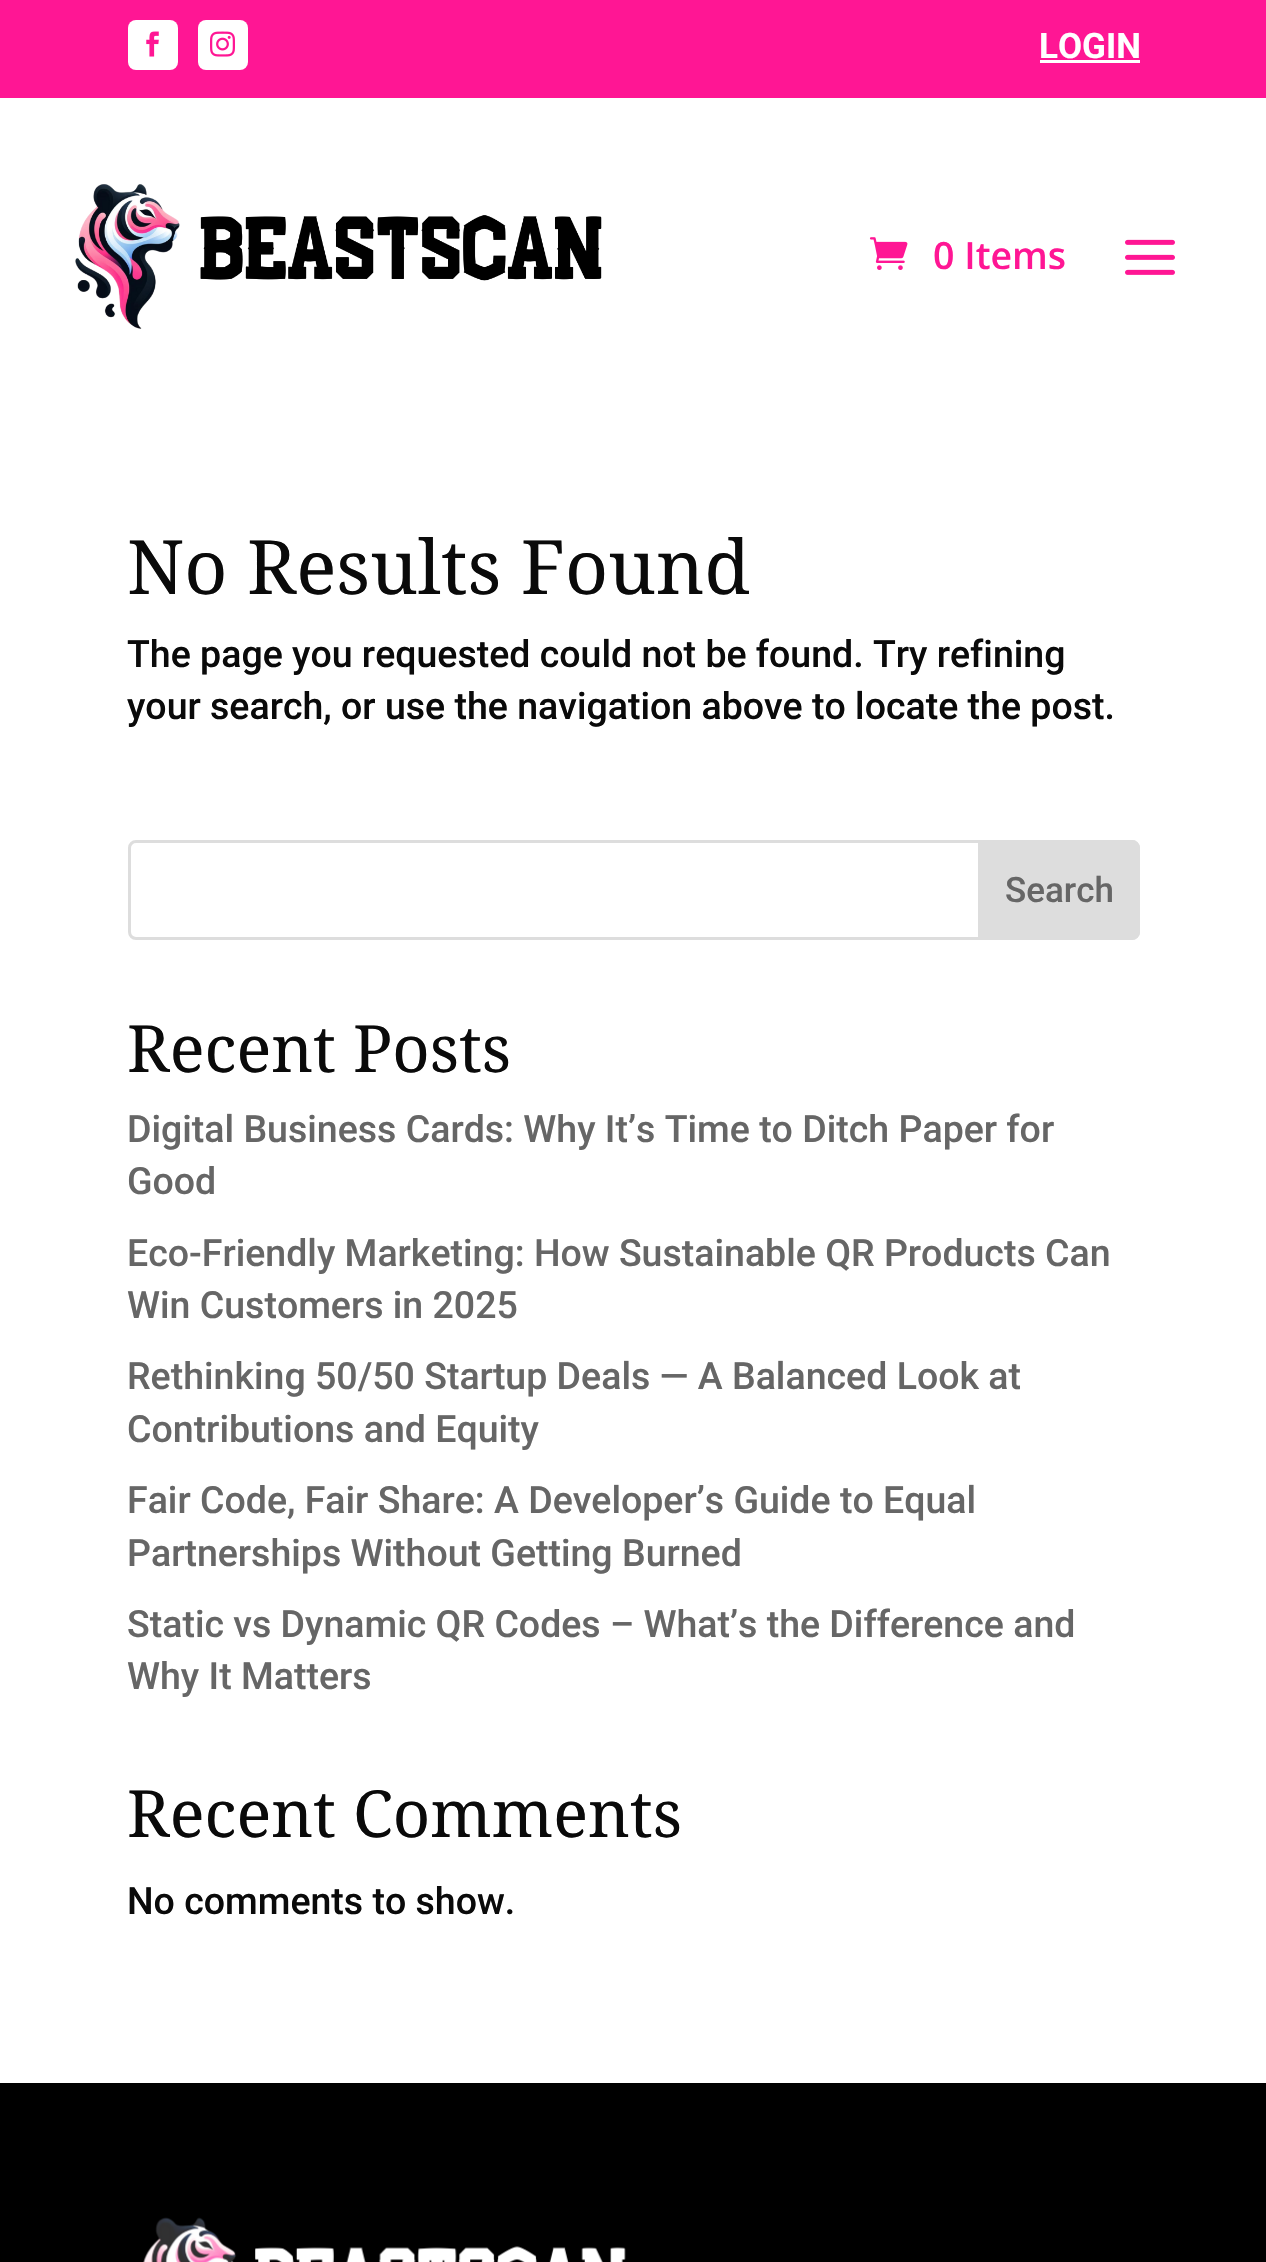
void draw(SkCanvas* canvas) {
	SkPaint fill;
	fill.setAntiAlias(true);
	auto makeFont = [&](const char* family, int weight, float size, bool italic = false) {
		SkFontStyle style(weight, SkFontStyle::kNormal_Width,
			italic ? SkFontStyle::kItalic_Slant : SkFontStyle::kUpright_Slant);
		SkFont result(fontMgr->matchFamilyStyle(family, style), size);
		result.setSubpixel(true);
		return result;
	};
	auto text = [&](const char* s, float x, float y, const SkFont& font) {
		canvas->drawString(s, x, y, font, fill);
	};
	auto box = [&](float l, float t, float r, float b) {
		canvas->drawRect(SkRect::MakeLTRB(l, t, r, b), fill);
	};
	auto roundBox = [&](float l, float t, float r, float b, float radius) {
		canvas->drawRoundRect(SkRect::MakeLTRB(l, t, r, b), radius, radius, fill);
	};
	auto picture = [&](const char* path, float l, float t, float r, float b) {
		auto image = SkImages::DeferredFromEncodedData(SkData::MakeFromFileName(path));
		canvas->drawImageRect(image, SkRect::MakeLTRB(l, t, r, b), SkSamplingOptions());
	};
	canvas->clear(0xFFFFFFFF);
	fill.setColor(0xFFFF1694);
	box(0, 0, 1266, 98);
	fill.setColor(0xFFFFFFFF);
	roundBox(128, 20, 178, 70, 8);
	picture("image0.png", 146, 31, 159, 57);
	roundBox(198, 20, 248, 70, 8);
	picture("image1.png", 210, 31, 235, 57);
	box(1040, 60, 1140, 63);
	picture("image2.png", 75, 184, 602, 329);
	picture("image3.png", 869, 237, 908, 270);
	picture("image4.png", 1125, 239, 1175, 275);
	fill.setStyle(SkPaint::kStroke_Style);
	fill.setStrokeWidth(3);
	fill.setColor(0xFFDDDDDD);
	canvas->drawRoundRect(SkRect::MakeLTRB(129.5f, 841.5f, 1138.5f, 938.5f), 6.5f, 6.5f, fill);
	fill.setStyle(SkPaint::kFill_Style);
	canvas->drawPath(SkPathBuilder().moveTo(979.5f, 841.5f).lineTo(1132, 841.5f).cubicTo(1135.5f, 841.5f, 1138.5f, 844.5f, 1138.5f, 848).lineTo(1138.5f, 932).cubicTo(1138.5f, 935.5f, 1135.5f, 938.5f, 1132, 938.5f).lineTo(979.5f, 938.5f).close().detach(), fill);
	fill.setStyle(SkPaint::kStroke_Style);
	canvas->drawPath(SkPathBuilder().moveTo(979.5f, 841.5f).lineTo(1132, 841.5f).cubicTo(1135.5f, 841.5f, 1138.5f, 844.5f, 1138.5f, 848).lineTo(1138.5f, 932).cubicTo(1138.5f, 935.5f, 1135.5f, 938.5f, 1132, 938.5f).lineTo(979.5f, 938.5f).close().detach(), fill);
	fill.setStyle(SkPaint::kFill_Style);
	fill.setColor(0xFF000000);
	box(0, 2083, 1266, 2262);
	picture("image5.png", 143, 2217, 626, 2262);
	auto font1 = makeFont("Roboto", 700, 35);
	fill.setColor(0xFFFFFFFF);
	text("LOGIN", 1039, 58, font1);
	auto font2 = makeFont("Open Sans", 600, 37.5f);
	fill.setColor(0xFFFF1694);
	text("0 Items", 933, 269, font2);
	auto font3 = makeFont("Noto Serif", 400, 75);
	fill.setColor(0xFF0A0A0A);
	text("No Results Found", 127, 594, font3);
	auto font4 = makeFont("Roboto", 500, 37.5f);
	text("The page you requested could not be found. Try refining", 127, 667, font4);
	text("your search, or use the navigation above to locate the post.", 127, 719, font4);
	auto font5 = makeFont("Roboto", 500, 35);
	fill.setColor(0xFF666666);
	text("Search", 1005, 902, font5);
	auto font6 = makeFont("Noto Serif", 400, 65);
	fill.setColor(0xFF0A0A0A);
	text("Recent Posts", 127, 1072, font6);
	fill.setColor(0xFF666666);
	text("Digital Business Cards: Why It’s Time to Ditch Paper for", 127, 1142, font4);
	text("Good", 127, 1194, font4);
	text("Eco-Friendly Marketing: How Sustainable QR Products Can", 127, 1266, font4);
	text("Win Customers in 2025", 127, 1318, font4);
	text("Rethinking 50/50 Startup Deals — A Balanced Look at", 127, 1389, font4);
	text("Contributions and Equity", 127, 1442, font4);
	text("Fair Code, Fair Share: A Developer’s Guide to Equal", 127, 1513, font4);
	text("Partnerships Without Getting Burned", 127, 1566, font4);
	text("Static vs Dynamic QR Codes – What’s the Difference and", 127, 1637, font4);
	text("Why It Matters", 127, 1689, font4);
	fill.setColor(0xFF0A0A0A);
	text("Recent Comments", 127, 1837, font6);
	text("No comments to show.", 127, 1914, font4);
}
